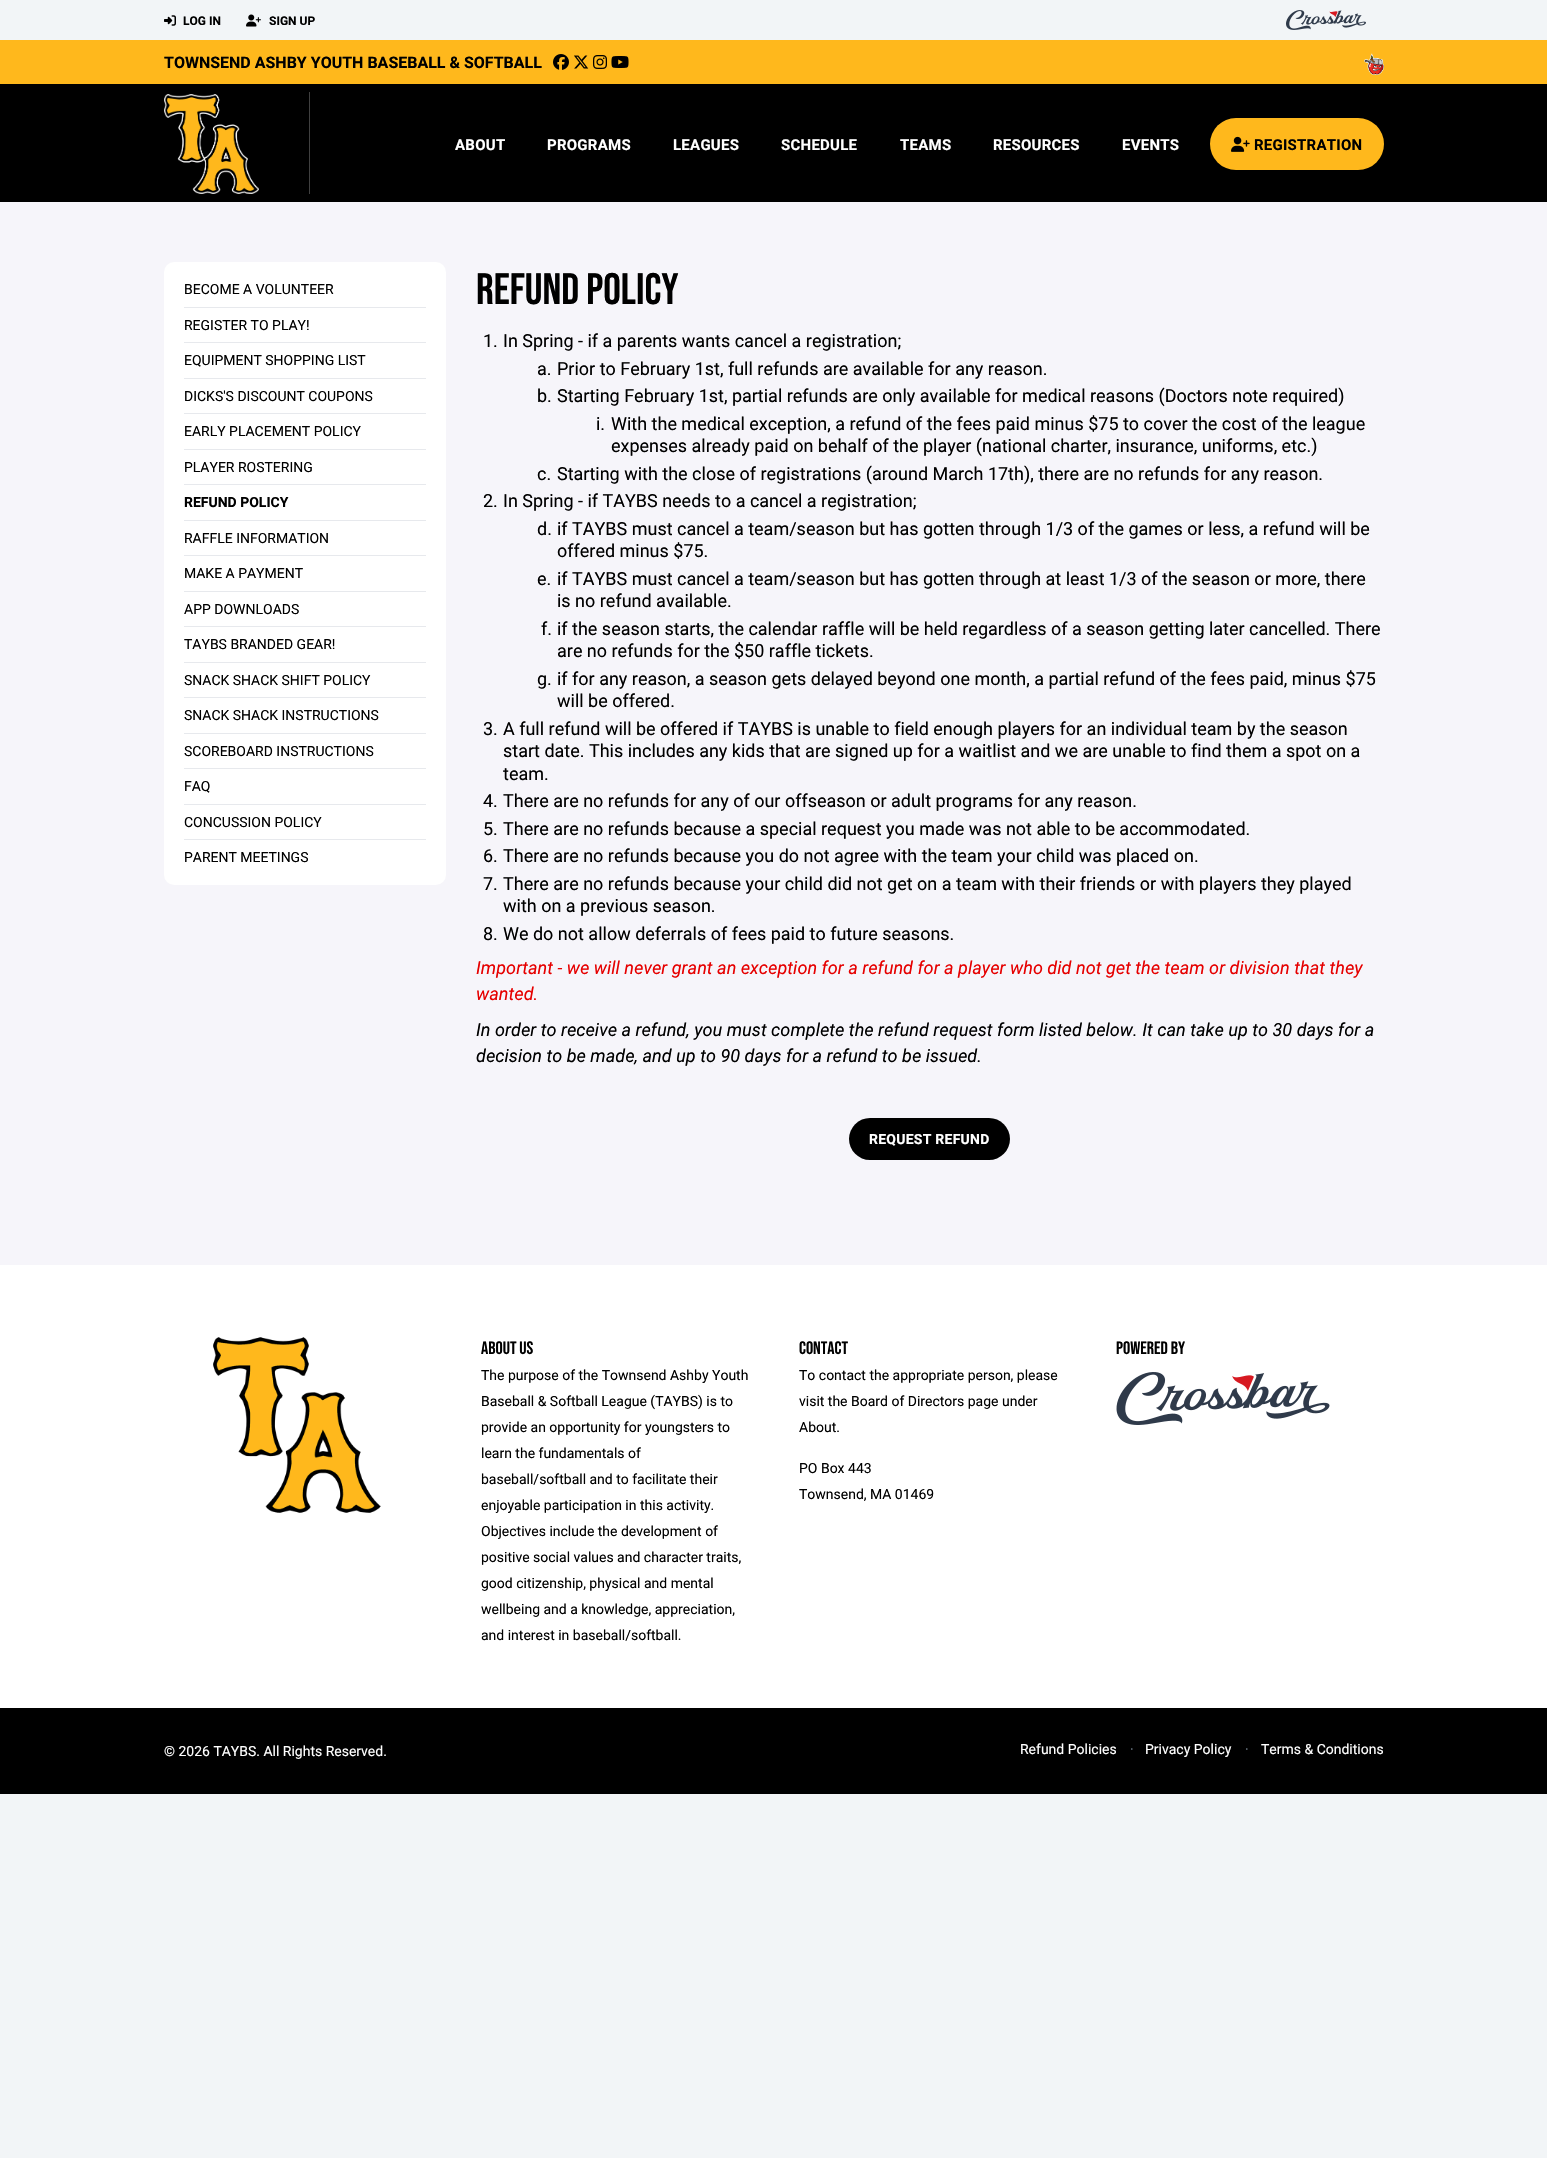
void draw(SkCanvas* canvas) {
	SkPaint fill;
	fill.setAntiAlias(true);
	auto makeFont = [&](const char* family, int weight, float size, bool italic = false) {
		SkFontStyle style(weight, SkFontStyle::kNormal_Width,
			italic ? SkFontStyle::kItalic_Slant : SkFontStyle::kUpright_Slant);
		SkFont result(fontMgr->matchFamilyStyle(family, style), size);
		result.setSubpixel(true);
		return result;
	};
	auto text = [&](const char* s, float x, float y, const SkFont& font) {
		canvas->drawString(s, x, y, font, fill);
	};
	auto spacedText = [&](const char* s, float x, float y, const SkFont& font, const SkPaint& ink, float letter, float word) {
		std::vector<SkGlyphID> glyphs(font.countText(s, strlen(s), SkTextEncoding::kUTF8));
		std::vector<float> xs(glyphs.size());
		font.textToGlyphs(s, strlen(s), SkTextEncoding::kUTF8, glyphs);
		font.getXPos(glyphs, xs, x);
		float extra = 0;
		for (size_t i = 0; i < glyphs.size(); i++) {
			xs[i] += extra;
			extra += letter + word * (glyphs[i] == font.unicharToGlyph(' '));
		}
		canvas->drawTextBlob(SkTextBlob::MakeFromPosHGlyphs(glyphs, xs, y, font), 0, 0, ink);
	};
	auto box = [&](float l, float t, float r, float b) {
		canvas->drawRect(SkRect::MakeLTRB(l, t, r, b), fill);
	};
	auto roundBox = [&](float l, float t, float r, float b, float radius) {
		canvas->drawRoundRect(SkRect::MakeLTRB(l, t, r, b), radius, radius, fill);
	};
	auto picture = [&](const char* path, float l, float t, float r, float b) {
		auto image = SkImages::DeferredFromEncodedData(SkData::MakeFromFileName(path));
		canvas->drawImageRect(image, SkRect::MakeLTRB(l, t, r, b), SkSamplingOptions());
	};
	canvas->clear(0xFFF2F5F7);
	picture("image0.png", 164, 15, 176, 26);
	picture("image1.png", 246, 14, 261, 27);
	picture("image2.png", 1286, 10, 1366, 30);
	fill.setColor(0xFFFFB81C);
	box(0, 40, 1547, 84);
	picture("image3.png", 553, 54, 569, 70);
	picture("image4.png", 574, 55, 589, 69);
	picture("image5.png", 593, 55, 607, 69);
	picture("image6.png", 611, 56, 629, 68);
	picture("image7.png", 1364, 53, 1384, 75);
	fill.setColor(0xFF000000);
	box(0, 84, 1547, 202);
	fill.setColor(0xFF404040);
	box(309, 92, 310, 194);
	picture("image8.png", 164, 94, 259, 194);
	fill.setColor(0xFFFFB81C);
	roundBox(1210, 118, 1384, 170, 26);
	picture("image9.png", 1231, 136, 1250, 152);
	fill.setColor(0xFFF6F5FA);
	box(0, 202, 1547, 1265);
	fill.setColor(0xFFFFFFFF);
	roundBox(164, 262, 446, 885, 10);
	fill.setColor(0xFFE7E9ED);
	box(184, 307, 426, 308);
	box(184, 342, 426, 343);
	box(184, 378, 426, 379);
	box(184, 413, 426, 414);
	box(184, 449, 426, 450);
	box(184, 484, 426, 485);
	box(184, 520, 426, 521);
	box(184, 555, 426, 556);
	box(184, 591, 426, 592);
	box(184, 626, 426, 627);
	box(184, 662, 426, 663);
	box(184, 697, 426, 698);
	box(184, 733, 426, 734);
	box(184, 768, 426, 769);
	box(184, 804, 426, 805);
	box(184, 839, 426, 840);
	fill.setColor(0xFF000000);
	roundBox(849, 1118, 1010, 1160, 21);
	fill.setColor(0xFFFFFFFF);
	box(0, 1265, 1547, 1708);
	picture("image10.png", 213, 1337, 381, 1513);
	picture("image11.png", 1116, 1372, 1330, 1425);
	fill.setColor(0xFF000000);
	box(0, 1708, 1547, 1794);
	auto font1 = makeFont("Roboto", 700, 12);
	text("LOG IN", 183, 25, font1);
	text("SIGN UP", 269, 25, font1);
	auto font2 = makeFont("Roboto", 700, 16);
	text("TOWNSEND ASHBY YOUTH BASEBALL & SOFTBALL", 164, 68, font2);
	auto font3 = makeFont("Roboto", 700, 15);
	fill.setColor(0xFFFFFFFF);
	spacedText("ABOUT", 455, 150, font3, fill, 0.25f, 0);
	spacedText("PROGRAMS", 547, 150, font3, fill, 0.25f, 0);
	spacedText("LEAGUES", 673, 150, font3, fill, 0.25f, 0);
	spacedText("SCHEDULE", 781, 150, font3, fill, 0.25f, 0);
	spacedText("TEAMS", 900, 150, font3, fill, 0.25f, 0);
	spacedText("RESOURCES", 993, 150, font3, fill, 0.25f, 0);
	spacedText("EVENTS", 1122, 150, font3, fill, 0.25f, 0);
	fill.setColor(0xFF000000);
	spacedText("REGISTRATION", 1254, 150, font3, fill, 0.25f, 0);
	auto font4 = makeFont("Roboto", 400, 14);
	text("BECOME A VOLUNTEER", 184, 294, font4);
	text("REGISTER TO PLAY!", 184, 330, font4);
	text("EQUIPMENT SHOPPING LIST", 184, 365, font4);
	text("DICKS'S DISCOUNT COUPONS", 184, 401, font4);
	text("EARLY PLACEMENT POLICY", 184, 436, font4);
	text("PLAYER ROSTERING", 184, 472, font4);
	auto font5 = makeFont("Roboto", 700, 14);
	text("REFUND POLICY", 184, 507, font5);
	text("RAFFLE INFORMATION", 184, 543, font4);
	text("MAKE A PAYMENT", 184, 578, font4);
	text("APP DOWNLOADS", 184, 614, font4);
	text("TAYBS BRANDED GEAR!", 184, 649, font4);
	text("SNACK SHACK SHIFT POLICY", 184, 685, font4);
	text("SNACK SHACK INSTRUCTIONS", 184, 720, font4);
	text("SCOREBOARD INSTRUCTIONS", 184, 756, font4);
	text("FAQ", 184, 791, font4);
	text("CONCUSSION POLICY", 184, 827, font4);
	text("PARENT MEETINGS", 184, 862, font4);
	auto font6 = makeFont("Bebas Neue", 400, 44);
	text("REFUND POLICY", 476, 304, font6);
	auto font7 = makeFont("Roboto", 400, 18);
	text("1.", 483, 347, font7);
	text("In Spring - if a parents wants cancel a registration;", 503, 347, font7);
	text("a.", 537, 375, font7);
	text("Prior to February 1st, full refunds are available for any reason.", 557, 375, font7);
	text("b.", 537, 402, font7);
	text("Starting February 1st, partial refunds are only available for medical reasons (Doctors note required)", 557, 402, font7);
	text("i.", 596, 430, font7);
	text("With the medical exception, a refund of the fees paid minus $75 to cover the cost of the league", 611, 430, font7);
	text("expenses already paid on behalf of the player (national charter, insurance, uniforms, etc.)", 611, 452, font7);
	text("c.", 537, 480, font7);
	text("Starting with the close of registrations (around March 17th), there are no refunds for any reason.", 557, 480, font7);
	text("2.", 483, 507, font7);
	text("In Spring - if TAYBS needs to a cancel a registration;", 503, 507, font7);
	text("d.", 537, 535, font7);
	text("if TAYBS must cancel a team/season but has gotten through 1/3 of the games or less, a refund will be", 557, 535, font7);
	text("offered minus $75.", 557, 557, font7);
	text("e.", 537, 585, font7);
	text("if TAYBS must cancel a team/season but has gotten through at least 1/3 of the season or more, there", 557, 585, font7);
	text("is no refund available.", 557, 607, font7);
	text("f.", 541, 635, font7);
	text("if the season starts, the calendar raffle will be held regardless of a season getting later cancelled. There", 557, 635, font7);
	text("are no refunds for the $50 raffle tickets.", 557, 657, font7);
	text("g.", 537, 685, font7);
	text("if for any reason, a season gets delayed beyond one month, a partial refund of the fees paid, minus $75", 557, 685, font7);
	text("will be offered.", 557, 707, font7);
	text("3.", 483, 735, font7);
	text("A full refund will be offered if TAYBS is unable to field enough players for an individual team by the season", 503, 735, font7);
	text("start date. This includes any kids that are signed up for a waitlist and we are unable to find them a spot on a", 503, 757, font7);
	text("team.", 503, 780, font7);
	text("4.", 483, 807, font7);
	text("There are no refunds for any of our offseason or adult programs for any reason.", 503, 807, font7);
	text("5.", 483, 835, font7);
	text("There are no refunds because a special request you made was not able to be accommodated.", 503, 835, font7);
	text("6.", 483, 862, font7);
	text("There are no refunds because you do not agree with the team your child was placed on.", 503, 862, font7);
	text("7.", 483, 890, font7);
	text("There are no refunds because your child did not get on a team with their friends or with players they played", 503, 890, font7);
	text("with on a previous season.", 503, 912, font7);
	text("8.", 483, 940, font7);
	text("We do not allow deferrals of fees paid to future seasons.", 503, 940, font7);
	auto font8 = makeFont("Roboto", 400, 18, true);
	fill.setColor(0xFFE60000);
	text("Important - we will never grant an exception for a refund for a player who did not get the team or division that they", 476, 974, font8);
	text("wanted.", 476, 1000, font8);
	fill.setColor(0xFF000000);
	text("In order to receive a refund, you must complete the refund request form listed below. It can take up to 30 days for a", 476, 1036, font8);
	text("decision to be made, and up to 90 days for a refund to be issued.", 476, 1062, font8);
	fill.setColor(0xFFFFFFFF);
	spacedText("REQUEST REFUND", 869, 1144, font5, fill, 0.25f, 0);
	auto font9 = makeFont("Bebas Neue", 400, 18);
	fill.setColor(0xFF000000);
	text("ABOUT US", 481, 1354, font9);
	text("The purpose of the Townsend Ashby Youth", 481, 1380, font4);
	text("Baseball & Softball League (TAYBS) is to", 481, 1406, font4);
	text("provide an opportunity for youngsters to", 481, 1432, font4);
	text("learn the fundamentals of", 481, 1458, font4);
	text("baseball/softball and to facilitate their", 481, 1484, font4);
	text("enjoyable participation in this activity.", 481, 1510, font4);
	text("Objectives include the development of", 481, 1536, font4);
	text("positive social values and character traits,", 481, 1562, font4);
	text("good citizenship, physical and mental", 481, 1588, font4);
	text("wellbeing and a knowledge, appreciation,", 481, 1614, font4);
	text("and interest in baseball/softball.", 481, 1640, font4);
	text("CONTACT", 799, 1354, font9);
	text("To contact the appropriate person, please", 799, 1380, font4);
	text("visit the Board of Directors page under", 799, 1406, font4);
	text("About.", 799, 1432, font4);
	text("PO Box 443", 799, 1473, font4);
	text("Townsend, MA 01469", 799, 1499, font4);
	text("POWERED BY", 1116, 1354, font9);
	fill.setColor(0xFFFFFFFF);
	text("© 2026 TAYBS. All Rights Reserved.", 164, 1756, font4);
	text("Refund Policies", 1020, 1754, font4);
	fill.setColor(0xFF707E8C);
	text("·", 1130, 1754, font4);
	fill.setColor(0xFFFFFFFF);
	text("Privacy Policy", 1145, 1754, font4);
	fill.setColor(0xFF707E8C);
	text("·", 1245, 1754, font4);
	fill.setColor(0xFFFFFFFF);
	text("Terms & Conditions", 1261, 1754, font4);
}
